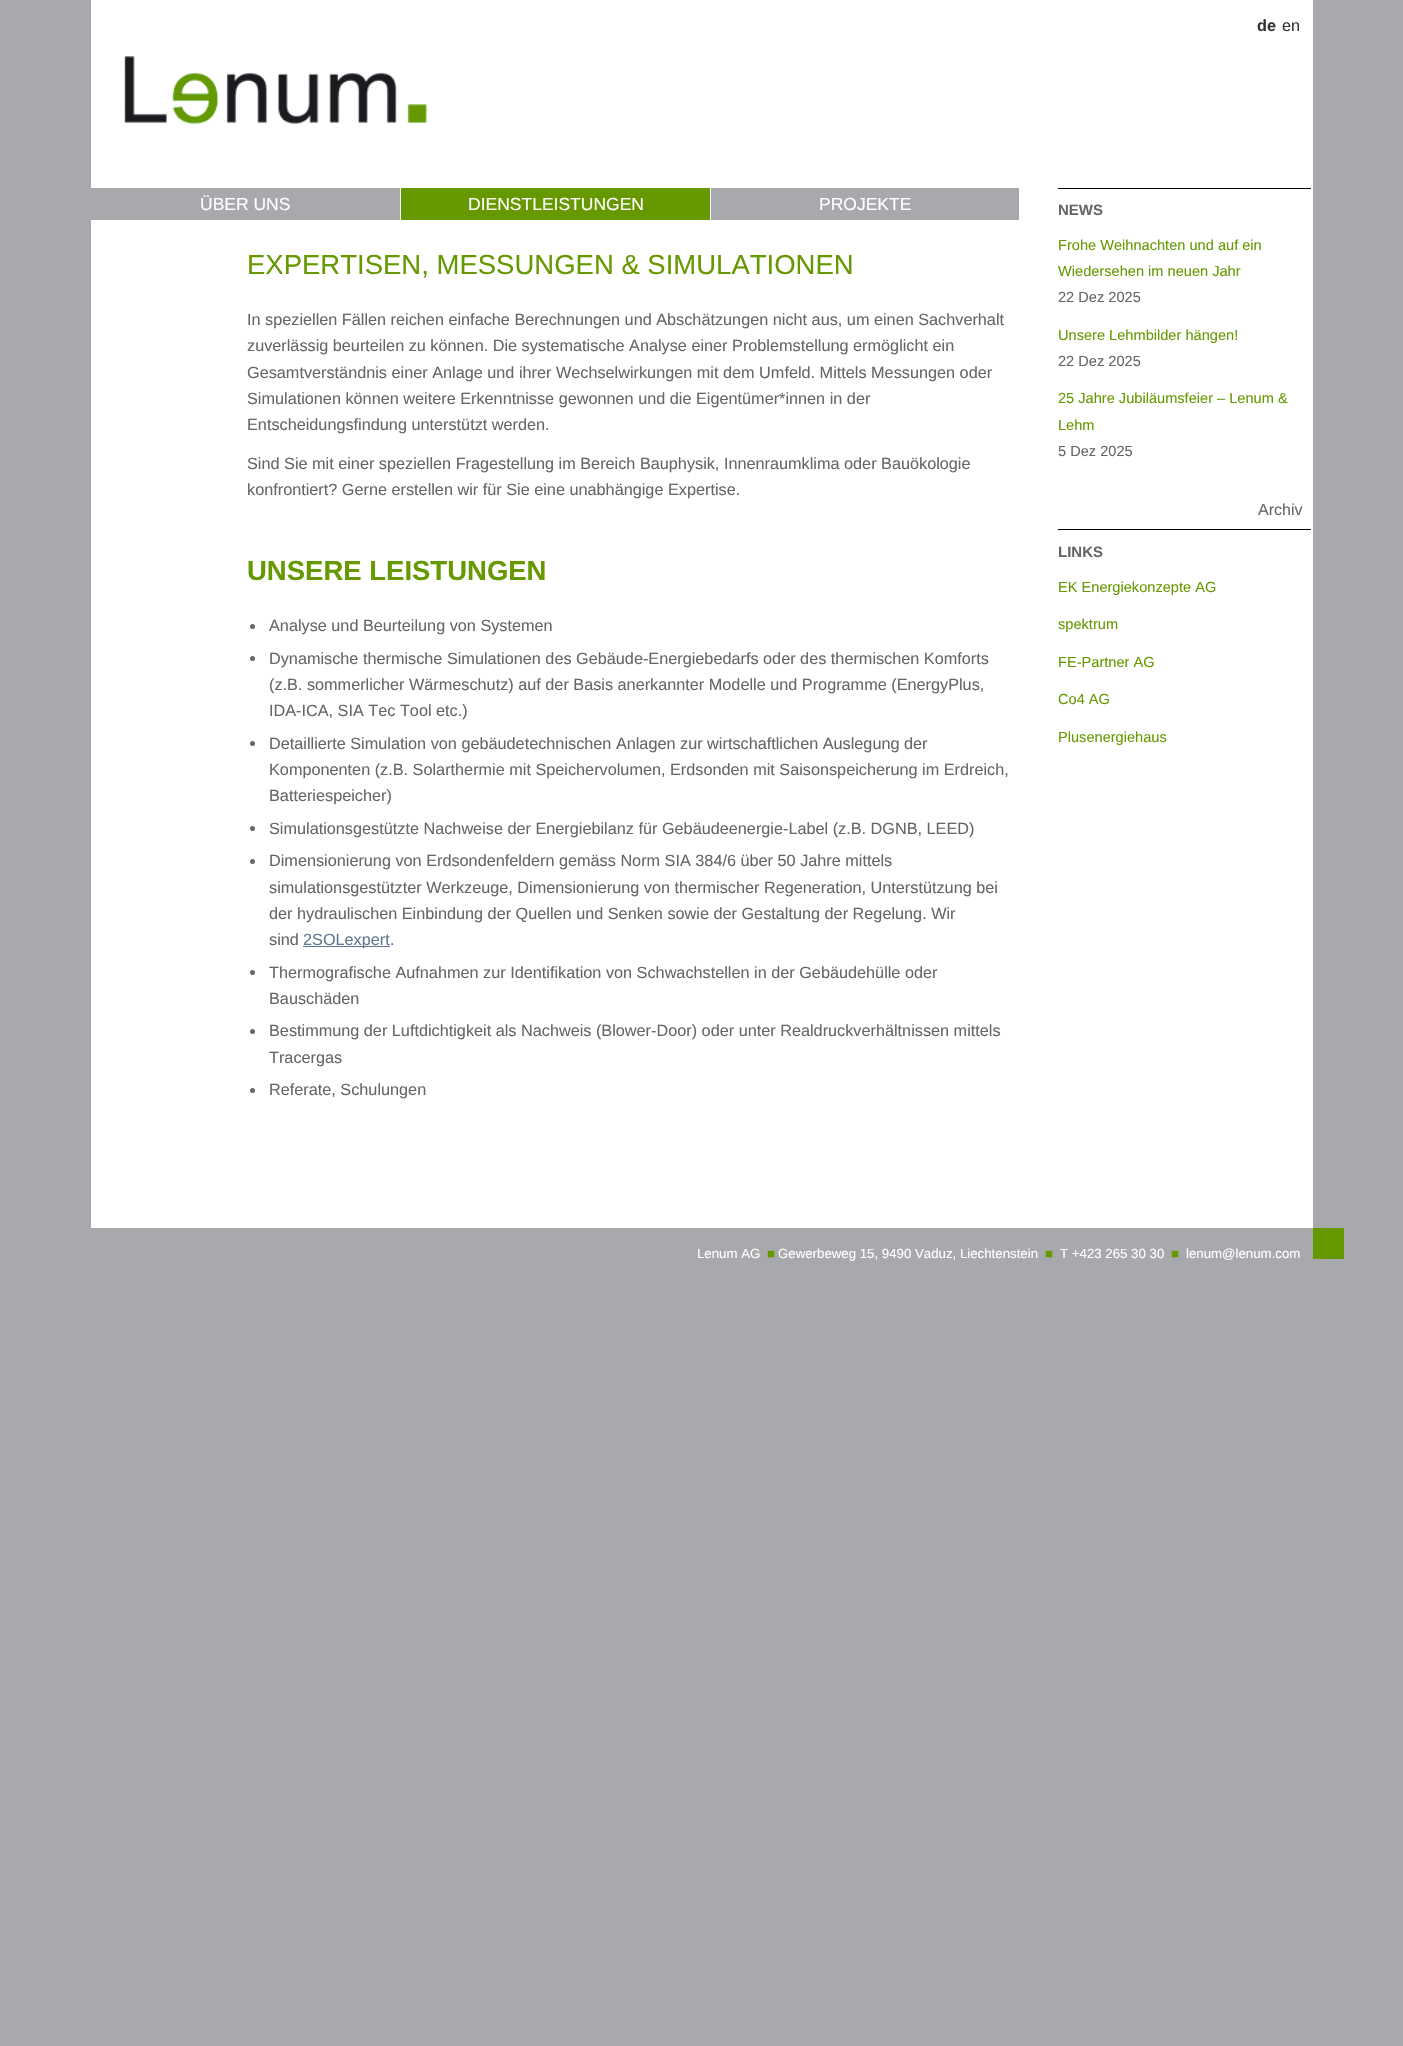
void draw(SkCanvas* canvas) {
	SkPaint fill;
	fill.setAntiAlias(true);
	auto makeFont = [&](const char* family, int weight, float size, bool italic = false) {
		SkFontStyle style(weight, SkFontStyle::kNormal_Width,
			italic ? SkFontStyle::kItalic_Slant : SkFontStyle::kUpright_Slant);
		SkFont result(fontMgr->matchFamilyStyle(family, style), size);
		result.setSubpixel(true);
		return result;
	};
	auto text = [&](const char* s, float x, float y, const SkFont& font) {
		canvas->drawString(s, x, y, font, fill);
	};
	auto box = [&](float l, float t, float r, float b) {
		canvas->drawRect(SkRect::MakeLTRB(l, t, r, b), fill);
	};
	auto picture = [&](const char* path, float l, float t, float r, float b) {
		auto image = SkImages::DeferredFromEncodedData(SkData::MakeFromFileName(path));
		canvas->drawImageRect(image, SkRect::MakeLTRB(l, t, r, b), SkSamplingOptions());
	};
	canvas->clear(0xFFA7A9AC);
	fill.setColor(0xFFFFFFFF);
	box(91, 0, 1313, 1228);
	picture("image0.png", 124, 56, 427, 124);
	fill.setColor(0xFFA7A9AC);
	box(91, 188, 400, 220);
	fill.setColor(0xFF669900);
	box(401, 188, 710, 220);
	fill.setColor(0xFFA7A9AC);
	box(711, 188, 1019, 220);
	fill.setColor(0xFF666666);
	canvas->drawCircle(252.5f, 626.5f, 2.5f, fill);
	canvas->drawCircle(252.5f, 658.5f, 2.5f, fill);
	canvas->drawCircle(252.5f, 743.5f, 2.5f, fill);
	canvas->drawCircle(252.5f, 828.5f, 2.5f, fill);
	canvas->drawCircle(252.5f, 861.5f, 2.5f, fill);
	fill.setColor(0xFF607890);
	box(303, 946, 390, 947);
	fill.setColor(0xFF666666);
	canvas->drawCircle(252.5f, 972.5f, 2.5f, fill);
	canvas->drawCircle(252.5f, 1031.5f, 2.5f, fill);
	canvas->drawCircle(252.5f, 1090.5f, 2.5f, fill);
	fill.setColor(0xFF000000);
	box(1058, 188, 1311, 189);
	box(1058, 529, 1311, 530);
	fill.setColor(0xFF669900);
	box(1313, 1228, 1344, 1259);
	auto font1 = makeFont("Liberation Sans", 700, 16.25f);
	fill.setColor(0xFF333333);
	text("de", 1257, 31, font1);
	auto font2 = makeFont("Liberation Sans", 400, 16.25f);
	text("en", 1282, 31, font2);
	auto font3 = makeFont("Liberation Sans", 400, 17.5f);
	fill.setColor(0xFFFFFFFF);
	text("ÜBER UNS", 200, 210, font3);
	text("DIENSTLEISTUNGEN", 468, 210, font3);
	text("PROJEKTE", 819, 210, font3);
	auto font4 = makeFont("Liberation Sans", 400, 27.5f);
	fill.setColor(0xFF669900);
	text("EXPERTISEN, MESSUNGEN & SIMULATIONEN", 247, 274, font4);
	fill.setColor(0xFF666666);
	text("In speziellen Fällen reichen einfache Berechnungen und Abschätzungen nicht aus, um einen Sachverhalt", 247, 325, font2);
	text("zuverlässig beurteilen zu können. Die systematische Analyse einer Problemstellung ermöglicht ein", 247, 351, font2);
	text("Gesamtverständnis einer Anlage und ihrer Wechselwirkungen mit dem Umfeld. Mittels Messungen oder", 247, 378, font2);
	text("Simulationen können weitere Erkenntnisse gewonnen und die Eigentümer*innen in der", 247, 404, font2);
	text("Entscheidungsfindung unterstützt werden.", 247, 430, font2);
	text("Sind Sie mit einer speziellen Fragestellung im Bereich Bauphysik, Innenraumklima oder Bauökologie", 247, 469, font2);
	text("konfrontiert? Gerne erstellen wir für Sie eine unabhängige Expertise.", 247, 495, font2);
	auto font5 = makeFont("Liberation Sans", 700, 27.5f);
	fill.setColor(0xFF669900);
	text("UNSERE LEISTUNGEN", 247, 580, font5);
	fill.setColor(0xFF666666);
	text("Analyse und Beurteilung von Systemen", 269, 631, font2);
	text("Dynamische thermische Simulationen des Gebäude-Energiebedarfs oder des thermischen Komforts", 269, 664, font2);
	text("(z.B. sommerlicher Wärmeschutz) auf der Basis anerkannter Modelle und Programme (EnergyPlus,", 269, 690, font2);
	text("IDA-ICA, SIA Tec Tool etc.)", 269, 716, font2);
	text("Detaillierte Simulation von gebäudetechnischen Anlagen zur wirtschaftlichen Auslegung der", 269, 749, font2);
	text("Komponenten (z.B. Solarthermie mit Speichervolumen, Erdsonden mit Saisonspeicherung im Erdreich,", 269, 775, font2);
	text("Batteriespeicher)", 269, 801, font2);
	text("Simulationsgestützte Nachweise der Energiebilanz für Gebäudeenergie-Label (z.B. DGNB, LEED)", 269, 834, font2);
	text("Dimensionierung von Erdsondenfeldern gemäss Norm SIA 384/6 über 50 Jahre mittels", 269, 866, font2);
	text("simulationsgestützter Werkzeuge, Dimensionierung von thermischer Regeneration, Unterstützung bei", 269, 893, font2);
	text("der hydraulischen Einbindung der Quellen und Senken sowie der Gestaltung der Regelung. Wir", 269, 919, font2);
	text("sind", 269, 945, font2);
	fill.setColor(0xFF607890);
	text("2SOLexpert", 303, 945, font2);
	fill.setColor(0xFF666666);
	text(".", 390, 945, font2);
	text("Thermografische Aufnahmen zur Identifikation von Schwachstellen in der Gebäudehülle oder", 269, 978, font2);
	text("Bauschäden", 269, 1004, font2);
	text("Bestimmung der Luftdichtigkeit als Nachweis (Blower-Door) oder unter Realdruckverhältnissen mittels", 269, 1036, font2);
	text("Tracergas", 269, 1063, font2);
	text("Referate, Schulungen", 269, 1095, font2);
	auto font6 = makeFont("Liberation Sans", 700, 15);
	text("NEWS", 1058, 215, font6);
	auto font7 = makeFont("Liberation Sans", 400, 14.6f);
	fill.setColor(0xFF669900);
	text("Frohe Weihnachten und auf ein", 1058, 250, font7);
	text("Wiedersehen im neuen Jahr", 1058, 276, font7);
	fill.setColor(0xFF666666);
	text("22 Dez 2025", 1058, 302, font7);
	fill.setColor(0xFF669900);
	text("Unsere Lehmbilder hängen!", 1058, 340, font7);
	fill.setColor(0xFF666666);
	text("22 Dez 2025", 1058, 366, font7);
	fill.setColor(0xFF669900);
	text("25 Jahre Jubiläumsfeier – Lenum &", 1058, 403, font7);
	text("Lehm", 1058, 430, font7);
	fill.setColor(0xFF666666);
	text("5 Dez 2025", 1058, 456, font7);
	auto font8 = makeFont("Liberation Sans", 400, 16);
	text("Archiv", 1258, 515, font8);
	text("LINKS", 1058, 557, font6);
	fill.setColor(0xFF669900);
	text("EK Energiekonzepte AG", 1058, 592, font7);
	text("spektrum", 1058, 629, font7);
	text("FE-Partner AG", 1058, 667, font7);
	text("Co4 AG", 1058, 704, font7);
	text("Plusenergiehaus", 1058, 742, font7);
	auto font9 = makeFont("Liberation Sans", 400, 13.25f);
	fill.setColor(0xFFFFFFFF);
	text("Lenum AG", 697, 1258, font9);
	fill.setColor(0xFF669900);
	text("■", 767, 1258, font9);
	fill.setColor(0xFFFFFFFF);
	text("Gewerbeweg 15, 9490 Vaduz, Liechtenstein", 778, 1258, font9);
	fill.setColor(0xFF669900);
	text("■", 1045, 1258, font9);
	fill.setColor(0xFFFFFFFF);
	text("T +423 265 30 30", 1060, 1258, font9);
	fill.setColor(0xFF669900);
	text("■", 1171, 1258, font9);
	fill.setColor(0xFFFFFFFF);
	text("lenum@lenum.com", 1186, 1258, font9);
}
